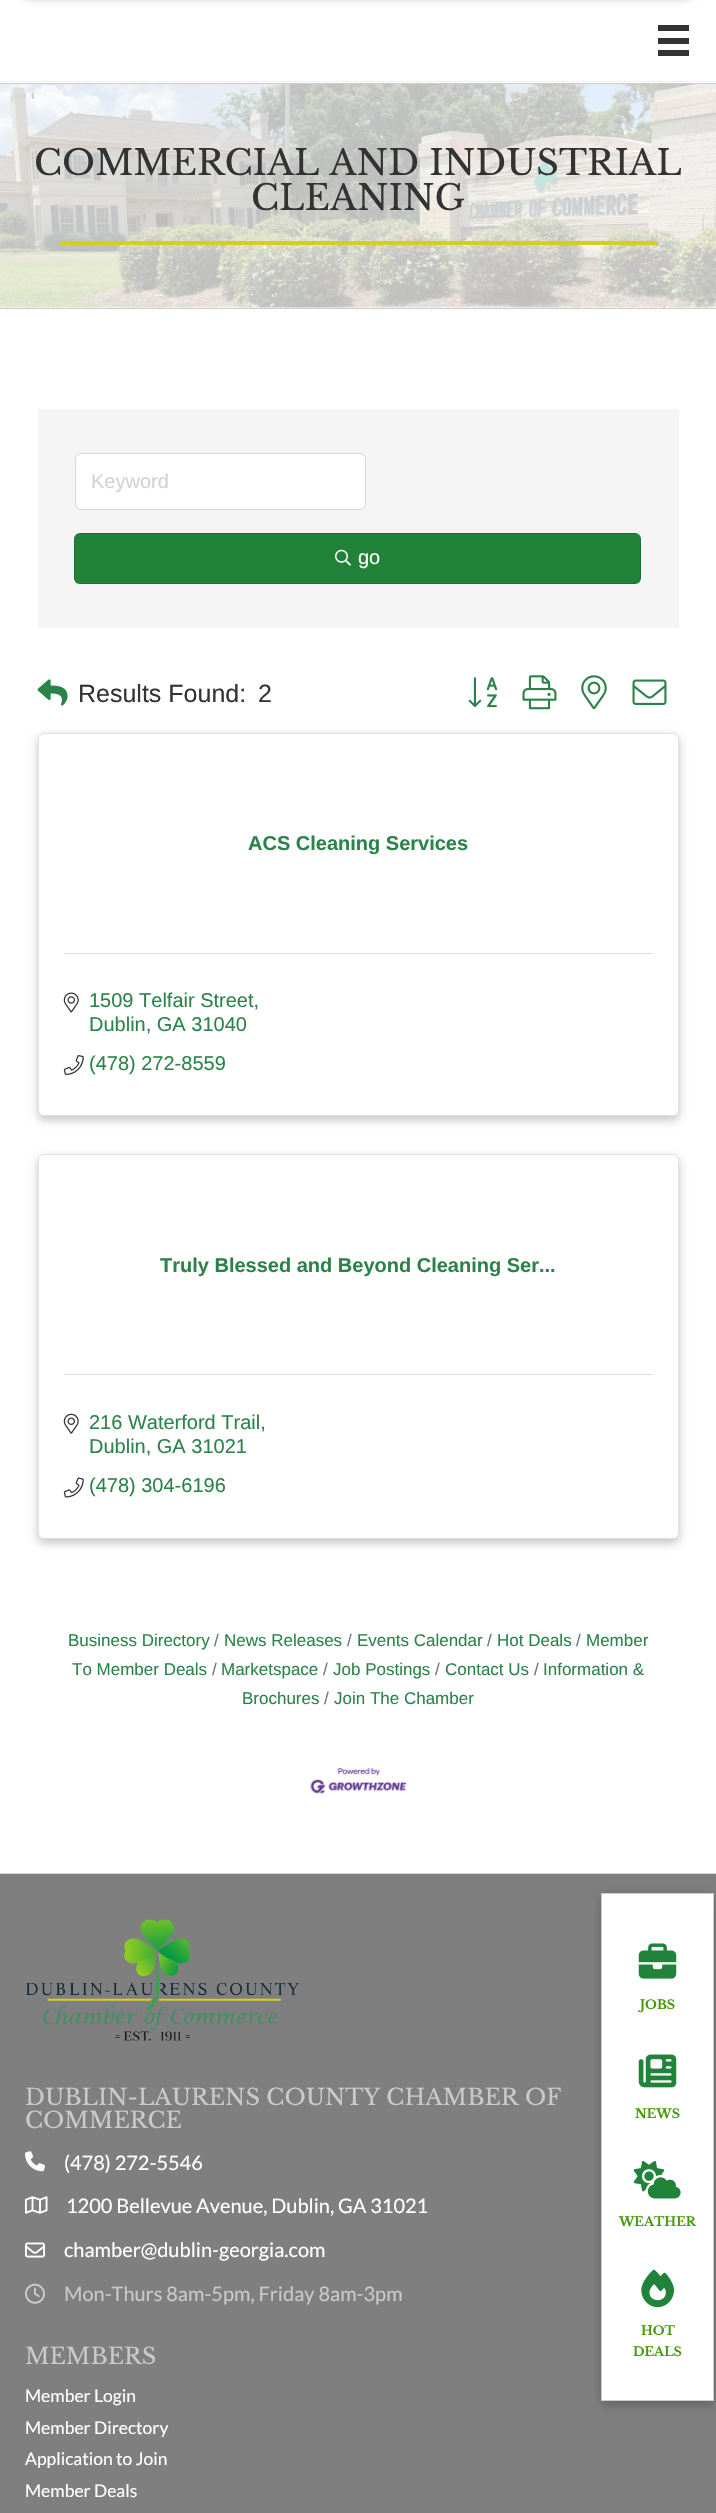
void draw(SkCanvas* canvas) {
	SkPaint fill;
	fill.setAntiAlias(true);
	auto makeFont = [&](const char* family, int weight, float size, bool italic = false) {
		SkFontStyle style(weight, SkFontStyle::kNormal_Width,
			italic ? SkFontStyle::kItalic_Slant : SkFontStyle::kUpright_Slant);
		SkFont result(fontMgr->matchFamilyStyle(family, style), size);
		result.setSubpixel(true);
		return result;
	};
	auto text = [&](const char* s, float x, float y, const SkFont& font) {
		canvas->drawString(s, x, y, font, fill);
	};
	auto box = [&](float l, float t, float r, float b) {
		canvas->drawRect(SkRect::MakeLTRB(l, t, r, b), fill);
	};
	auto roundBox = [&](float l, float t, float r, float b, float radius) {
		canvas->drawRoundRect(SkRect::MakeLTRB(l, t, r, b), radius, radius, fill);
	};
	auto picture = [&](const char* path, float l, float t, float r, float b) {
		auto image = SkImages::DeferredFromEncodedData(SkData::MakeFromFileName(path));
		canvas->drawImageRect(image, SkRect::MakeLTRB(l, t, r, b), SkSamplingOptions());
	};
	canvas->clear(0xFFFFFFFF);
	fill.setColor(0xFFEFEFEF);
	box(0, 81, 716, 82);
	fill.setColor(0x3D000000);
	fill.setMaskFilter(SkMaskFilter::MakeBlur(kNormal_SkBlurStyle, 5));
	canvas->drawRoundRect(SkRect::MakeLTRB(25, -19, 691, -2), 4, 4, fill);
	fill.setMaskFilter(nullptr);
	fill.setColor(0xFF333333);
	box(658, 25, 689, 31);
	box(658, 38, 689, 44);
	box(658, 50, 689, 56);
	picture("image0.png", 0, 84, 716, 308);
	fill.setColor(0xFFCCCCCC);
	box(0, 83, 716, 84);
	box(0, 308, 716, 309);
	fill.setColor(0xFFD4CD23);
	box(59, 241, 658, 245);
	fill.setColor(0xFFF5F5F5);
	box(38, 409, 679, 628);
	fill.setColor(0xFFFFFFFF);
	roundBox(76, 454, 365, 509, 5);
	fill.setStyle(SkPaint::kStroke_Style);
	fill.setStrokeWidth(1);
	fill.setColor(0x1F000000);
	canvas->drawRoundRect(SkRect::MakeLTRB(75.5f, 453.5f, 365.5f, 509.5f), 5.5f, 5.5f, fill);
	fill.setStyle(SkPaint::kFill_Style);
	fill.setColor(0xFF218239);
	roundBox(74, 533, 641, 584, 6);
	fill.setStyle(SkPaint::kStroke_Style);
	fill.setColor(0x1F000000);
	canvas->drawRoundRect(SkRect::MakeLTRB(74.5f, 533.5f, 640.5f, 583.5f), 5.5f, 5.5f, fill);
	picture("image1.png", 335, 549, 351, 566);
	picture("image2.png", 37, 679, 68, 706);
	picture("image3.png", 468, 677, 498, 708);
	picture("image4.png", 522, 675, 557, 710);
	picture("image5.png", 581, 675, 607, 710);
	picture("image6.png", 632, 679, 667, 705);
	fill.setStyle(SkPaint::kFill_Style);
	fill.setColor(0x3B000000);
	fill.setMaskFilter(SkMaskFilter::MakeBlur(kNormal_SkBlurStyle, 5));
	canvas->drawRoundRect(SkRect::MakeLTRB(38, 736, 679, 1120), 6, 6, fill);
	fill.setMaskFilter(nullptr);
	fill.setColor(0xFFFFFFFF);
	roundBox(38, 733, 679, 1116, 6);
	fill.setStyle(SkPaint::kStroke_Style);
	fill.setColor(0x1F000000);
	canvas->drawRoundRect(SkRect::MakeLTRB(38.5f, 733.5f, 678.5f, 1115.5f), 5.5f, 5.5f, fill);
	fill.setStyle(SkPaint::kFill_Style);
	fill.setColor(0xFFDFDFDF);
	box(64, 953, 653, 954);
	picture("image7.png", 63, 992, 79, 1013);
	picture("image8.png", 63, 1055, 84, 1075);
	fill.setColor(0x3B000000);
	fill.setMaskFilter(SkMaskFilter::MakeBlur(kNormal_SkBlurStyle, 5));
	canvas->drawRoundRect(SkRect::MakeLTRB(38, 1158, 679, 1543), 6, 6, fill);
	fill.setMaskFilter(nullptr);
	fill.setColor(0xFFFFFFFF);
	roundBox(38, 1154, 679, 1539, 6);
	fill.setStyle(SkPaint::kStroke_Style);
	fill.setColor(0x1F000000);
	canvas->drawRoundRect(SkRect::MakeLTRB(38.5f, 1154.5f, 678.5f, 1538.5f), 5.5f, 5.5f, fill);
	fill.setStyle(SkPaint::kFill_Style);
	fill.setColor(0xFFDFDFDF);
	box(64, 1374, 653, 1375);
	picture("image9.png", 63, 1413, 79, 1434);
	picture("image10.png", 63, 1477, 84, 1498);
	picture("image11.png", 310, 1768, 407, 1794);
	fill.setColor(0xFF7F7F7F);
	box(0, 1874, 716, 2513);
	fill.setColor(0xFFDADADA);
	box(0, 1873, 716, 1874);
	picture("image12.png", 26, 1919, 299, 2041);
	picture("image13.png", 25, 2151, 45, 2172);
	picture("image14.png", 25, 2196, 48, 2214);
	picture("image15.png", 25, 2242, 45, 2258);
	picture("image16.png", 25, 2283, 45, 2304);
	fill.setColor(0xFFFFFFFF);
	box(602, 1894, 713, 2400);
	canvas->save();
	canvas->clipPath(SkPathBuilder(SkPathFillType::kEvenOdd).moveTo(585, 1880).lineTo(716, 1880).lineTo(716, 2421).lineTo(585, 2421).close().moveTo(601, 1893).lineTo(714, 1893).lineTo(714, 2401).lineTo(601, 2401).close().detach(), true);
	fill.setColor(0x38000000);
	fill.setMaskFilter(SkMaskFilter::MakeBlur(kNormal_SkBlurStyle, 5));
	canvas->drawRect(SkRect::MakeLTRB(601, 1896, 714, 2405), fill);
	fill.setMaskFilter(nullptr);
	canvas->restore();
	fill.setStyle(SkPaint::kStroke_Style);
	fill.setColor(0xFFCCCCCC);
	canvas->drawRect(SkRect::MakeLTRB(601.5f, 1893.5f, 713.5f, 2400.5f), fill);
	picture("image17.png", 638, 1943, 677, 1979);
	picture("image18.png", 638, 2054, 677, 2088);
	picture("image19.png", 633, 2161, 681, 2199);
	picture("image20.png", 641, 2269, 675, 2308);
	auto font1 = makeFont("Libre Baskerville", 400, 35);
	fill.setStyle(SkPaint::kFill_Style);
	fill.setColor(0xFF333333);
	text("COMMERCIAL AND INDUSTRIAL", 34, 175, font1);
	text("CLEANING", 251, 210, font1);
	auto font2 = makeFont("Liberation Sans", 400, 20);
	fill.setColor(0xFFD2D2D2);
	text("Keyword", 91, 488, font2);
	fill.setColor(0xFFFFFFFF);
	text("go", 358, 564, font2);
	auto font3 = makeFont("Liberation Sans", 400, 25);
	fill.setColor(0xFF333333);
	text("Results Found:", 78, 702, font3);
	text("2", 258, 702, font3);
	auto font4 = makeFont("Liberation Sans", 700, 20);
	fill.setColor(0xFF2B834A);
	text("ACS Cleaning Services", 248, 850, font4);
	text("1509 Telfair Street,", 89, 1007, font2);
	text("Dublin, GA 31040", 89, 1031, font2);
	text("(478) 272-8559", 89, 1070, font2);
	text("Truly Blessed and Beyond Cleaning Ser...", 160, 1272, font4);
	text("216 Waterford Trail,", 89, 1429, font2);
	text("Dublin, GA 31021", 89, 1453, font2);
	text("(478) 304-6196", 89, 1492, font2);
	auto font5 = makeFont("Liberation Sans", 400, 17);
	text("Business Directory", 68, 1646, font5);
	fill.setColor(0xFF6C757D);
	text("/", 576, 1646, font5);
	fill.setColor(0xFF2B834A);
	text("Member", 586, 1646, font5);
	text("To Member Deals", 72, 1675, font5);
	fill.setColor(0xFF6C757D);
	text("/", 214, 1646, font5);
	fill.setColor(0xFF2B834A);
	text("News Releases", 224, 1646, font5);
	fill.setColor(0xFF6C757D);
	text("/", 347, 1646, font5);
	fill.setColor(0xFF2B834A);
	text("Events Calendar", 357, 1646, font5);
	fill.setColor(0xFF6C757D);
	text("/", 487, 1646, font5);
	fill.setColor(0xFF2B834A);
	text("Hot Deals", 497, 1646, font5);
	fill.setColor(0xFF6C757D);
	text("/", 212, 1675, font5);
	fill.setColor(0xFF2B834A);
	text("Marketspace", 221, 1675, font5);
	fill.setColor(0xFF6C757D);
	text("/", 534, 1675, font5);
	fill.setColor(0xFF2B834A);
	text("Information &", 543, 1675, font5);
	text("Brochures", 242, 1704, font5);
	fill.setColor(0xFF6C757D);
	text("/", 323, 1675, font5);
	fill.setColor(0xFF2B834A);
	text("Job Postings", 333, 1675, font5);
	fill.setColor(0xFF6C757D);
	text("/", 435, 1675, font5);
	fill.setColor(0xFF2B834A);
	text("Contact Us", 445, 1675, font5);
	fill.setColor(0xFF6C757D);
	text("/", 324, 1704, font5);
	fill.setColor(0xFF2B834A);
	text("Join The Chamber", 334, 1704, font5);
	auto font6 = makeFont("Libre Baskerville", 400, 22.5f);
	fill.setColor(0xFFC9C9C9);
	text("DUBLIN-LAURENS COUNTY CHAMBER OF", 25, 2105, font6);
	text("COMMERCE", 25, 2128, font6);
	auto font7 = makeFont("Lato", 400, 20);
	fill.setColor(0xFFFFFFFF);
	text("(478) 272-5546", 64, 2170, font7);
	text("1200 Bellevue Avenue, Dublin, GA 31021", 66, 2213, font7);
	text("chamber@dublin-georgia.com", 64, 2257, font7);
	fill.setColor(0xFFC9C9C9);
	text("Mon-Thurs 8am-5pm, Friday 8am-3pm", 64, 2301, font7);
	text("MEMBERS", 25, 2364, font6);
	auto font8 = makeFont("Lato", 400, 17.5f);
	fill.setColor(0xFFFFFFFF);
	text("Member Login", 25, 2402, font8);
	text("Member Directory", 25, 2434, font8);
	text("Application to Join", 25, 2465, font8);
	text("Member Deals", 25, 2497, font8);
	auto font9 = makeFont("Libre Baskerville", 700, 12.5f);
	fill.setColor(0xFF439906);
	text("JOBS", 640, 2009, font9);
	text("NEWS", 635, 2118, font9);
	text("WEATHER", 619, 2226, font9);
	text("HOT", 641, 2335, font9);
	text("DEALS", 633, 2356, font9);
}
